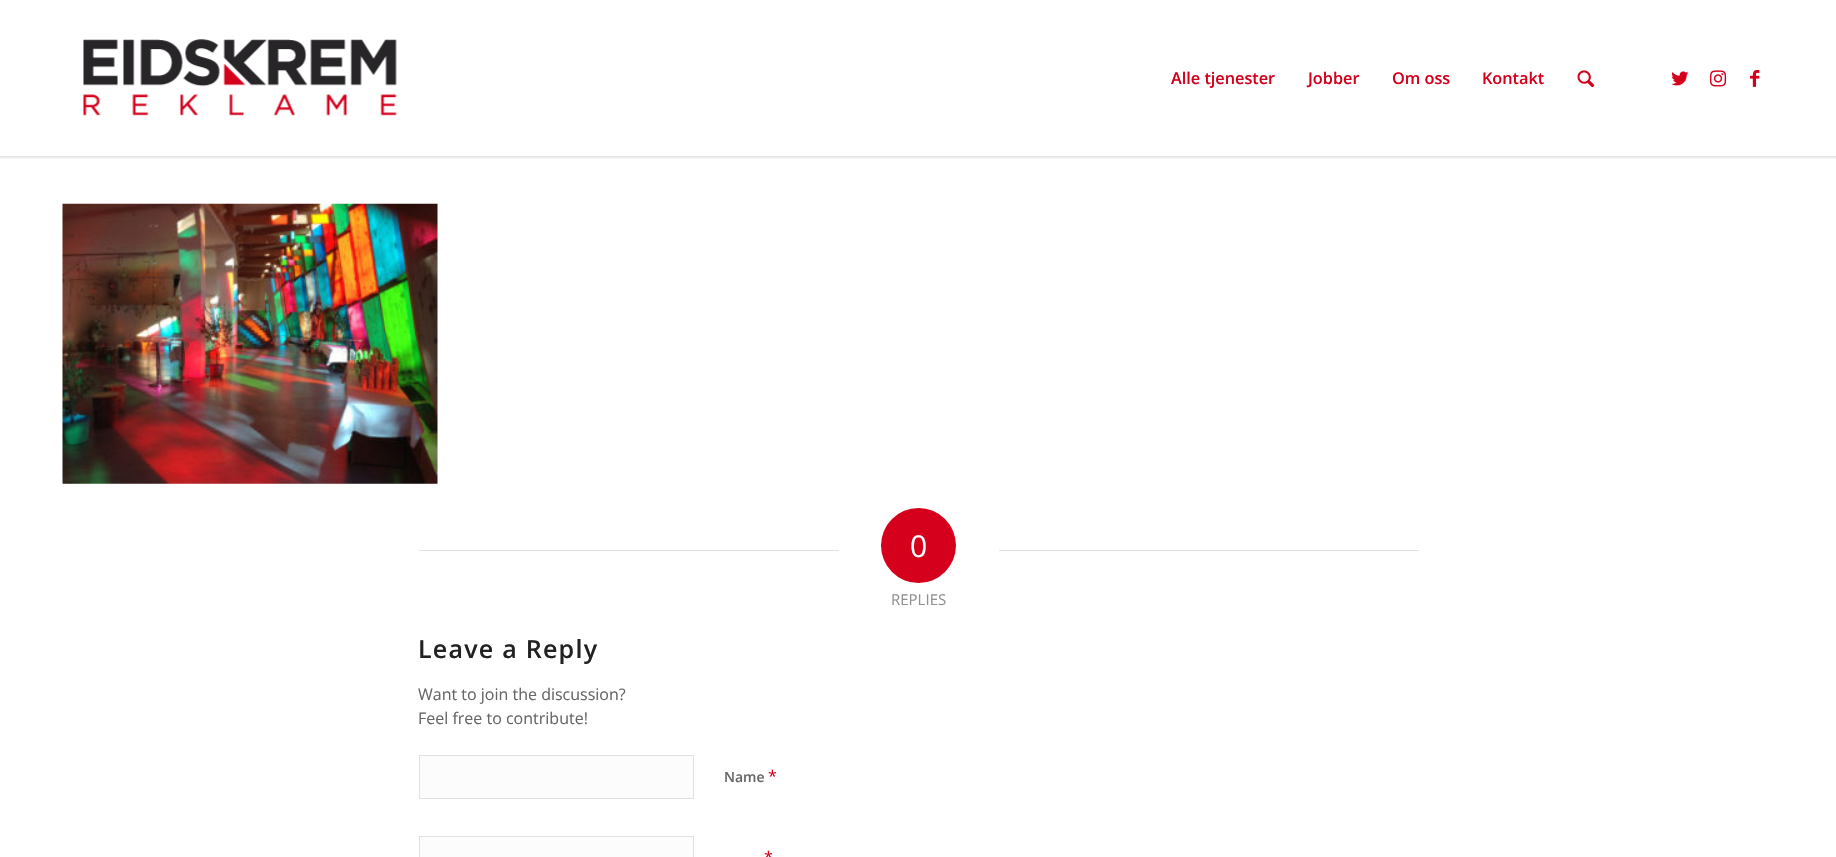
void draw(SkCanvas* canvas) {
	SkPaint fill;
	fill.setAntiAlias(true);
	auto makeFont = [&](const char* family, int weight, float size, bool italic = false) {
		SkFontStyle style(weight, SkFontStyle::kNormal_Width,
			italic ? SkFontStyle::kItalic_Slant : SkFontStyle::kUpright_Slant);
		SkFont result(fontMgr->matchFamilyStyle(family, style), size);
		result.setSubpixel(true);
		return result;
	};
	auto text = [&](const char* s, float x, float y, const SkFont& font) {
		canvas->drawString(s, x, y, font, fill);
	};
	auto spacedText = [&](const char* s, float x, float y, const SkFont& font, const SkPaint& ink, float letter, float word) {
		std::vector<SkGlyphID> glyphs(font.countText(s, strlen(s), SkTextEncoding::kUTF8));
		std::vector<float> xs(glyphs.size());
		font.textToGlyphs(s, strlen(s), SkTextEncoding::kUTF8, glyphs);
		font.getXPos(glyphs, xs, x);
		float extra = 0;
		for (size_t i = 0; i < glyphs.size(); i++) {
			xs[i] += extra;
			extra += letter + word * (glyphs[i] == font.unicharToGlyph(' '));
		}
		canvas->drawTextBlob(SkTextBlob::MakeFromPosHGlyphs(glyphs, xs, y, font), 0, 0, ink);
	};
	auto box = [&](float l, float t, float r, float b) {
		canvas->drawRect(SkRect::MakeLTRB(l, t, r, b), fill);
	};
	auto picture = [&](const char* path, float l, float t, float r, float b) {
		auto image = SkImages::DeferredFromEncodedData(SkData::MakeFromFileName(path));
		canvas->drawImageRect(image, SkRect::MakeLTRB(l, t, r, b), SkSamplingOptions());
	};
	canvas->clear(0xFFFFFFFF);
	canvas->save();
	canvas->clipRect(SkRect::MakeLTRB(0, 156, 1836, 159));
	fill.setColor(0x1A000000);
	fill.setMaskFilter(SkMaskFilter::MakeBlur(kNormal_SkBlurStyle, 1));
	canvas->drawRect(SkRect::MakeLTRB(-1, -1, 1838, 158), fill);
	fill.setMaskFilter(nullptr);
	canvas->restore();
	picture("image0.png", 83, 39, 397, 116);
	picture("image1.png", 1577, 70, 1595, 88);
	picture("image2.png", 1671, 71, 1689, 86);
	picture("image3.png", 1710, 70, 1727, 87);
	picture("image4.png", 1750, 70, 1760, 87);
	picture("image5.png", 62, 203, 438, 484);
	fill.setColor(0xFFE1E1E1);
	box(419, 550, 839, 551);
	fill.setColor(0xFFD4001C);
	canvas->drawCircle(918.5f, 545.5f, 37.5f, fill);
	fill.setColor(0xFFE1E1E1);
	box(999, 550, 1419, 551);
	fill.setColor(0xFFFCFCFC);
	canvas->drawRect(SkRect::MakeLTRB(419.5f, 755.5f, 693.5f, 798.5f), fill);
	fill.setStyle(SkPaint::kStroke_Style);
	fill.setStrokeWidth(1);
	fill.setColor(0xFFE1E1E1);
	canvas->drawRect(SkRect::MakeLTRB(419.5f, 755.5f, 693.5f, 798.5f), fill);
	fill.setStyle(SkPaint::kFill_Style);
	fill.setColor(0xFFFCFCFC);
	canvas->drawRect(SkRect::MakeLTRB(419.5f, 836.5f, 693.5f, 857.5f), fill);
	fill.setStyle(SkPaint::kStroke_Style);
	fill.setColor(0xFFE1E1E1);
	canvas->drawRect(SkRect::MakeLTRB(419.5f, 836.5f, 693.5f, 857.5f), fill);
	auto font1 = makeFont("Open Sans", 600, 16.25f);
	fill.setStyle(SkPaint::kFill_Style);
	fill.setColor(0xFFD4001C);
	text("Alle tjenester", 1171, 84, font1);
	text("Jobber", 1308, 84, font1);
	text("Om oss", 1392, 84, font1);
	text("Kontakt", 1482, 84, font1);
	auto font2 = makeFont("Open Sans", 400, 30);
	fill.setColor(0xFFFFFFFF);
	text("0", 910, 557, font2);
	auto font3 = makeFont("Open Sans", 400, 15);
	fill.setColor(0xFF919191);
	text("REPLIES", 891, 605, font3);
	auto font4 = makeFont("Open Sans", 600, 25);
	fill.setColor(0xFF222222);
	spacedText("Leave a Reply", 418, 658, font4, fill, 1.25f, 0);
	auto font5 = makeFont("Open Sans", 400, 16);
	fill.setColor(0xFF666666);
	text("Want to join the discussion?", 418, 700, font5);
	text("Feel free to contribute!", 418, 724, font5);
	auto font6 = makeFont("Open Sans", 600, 14);
	text("Name", 724, 782, font6);
	auto font7 = makeFont("Open Sans", 400, 16.25f);
	fill.setColor(0xFFD4001C);
	text("*", 768, 782, font7);
	text("*", 764, 863, font7);
}
